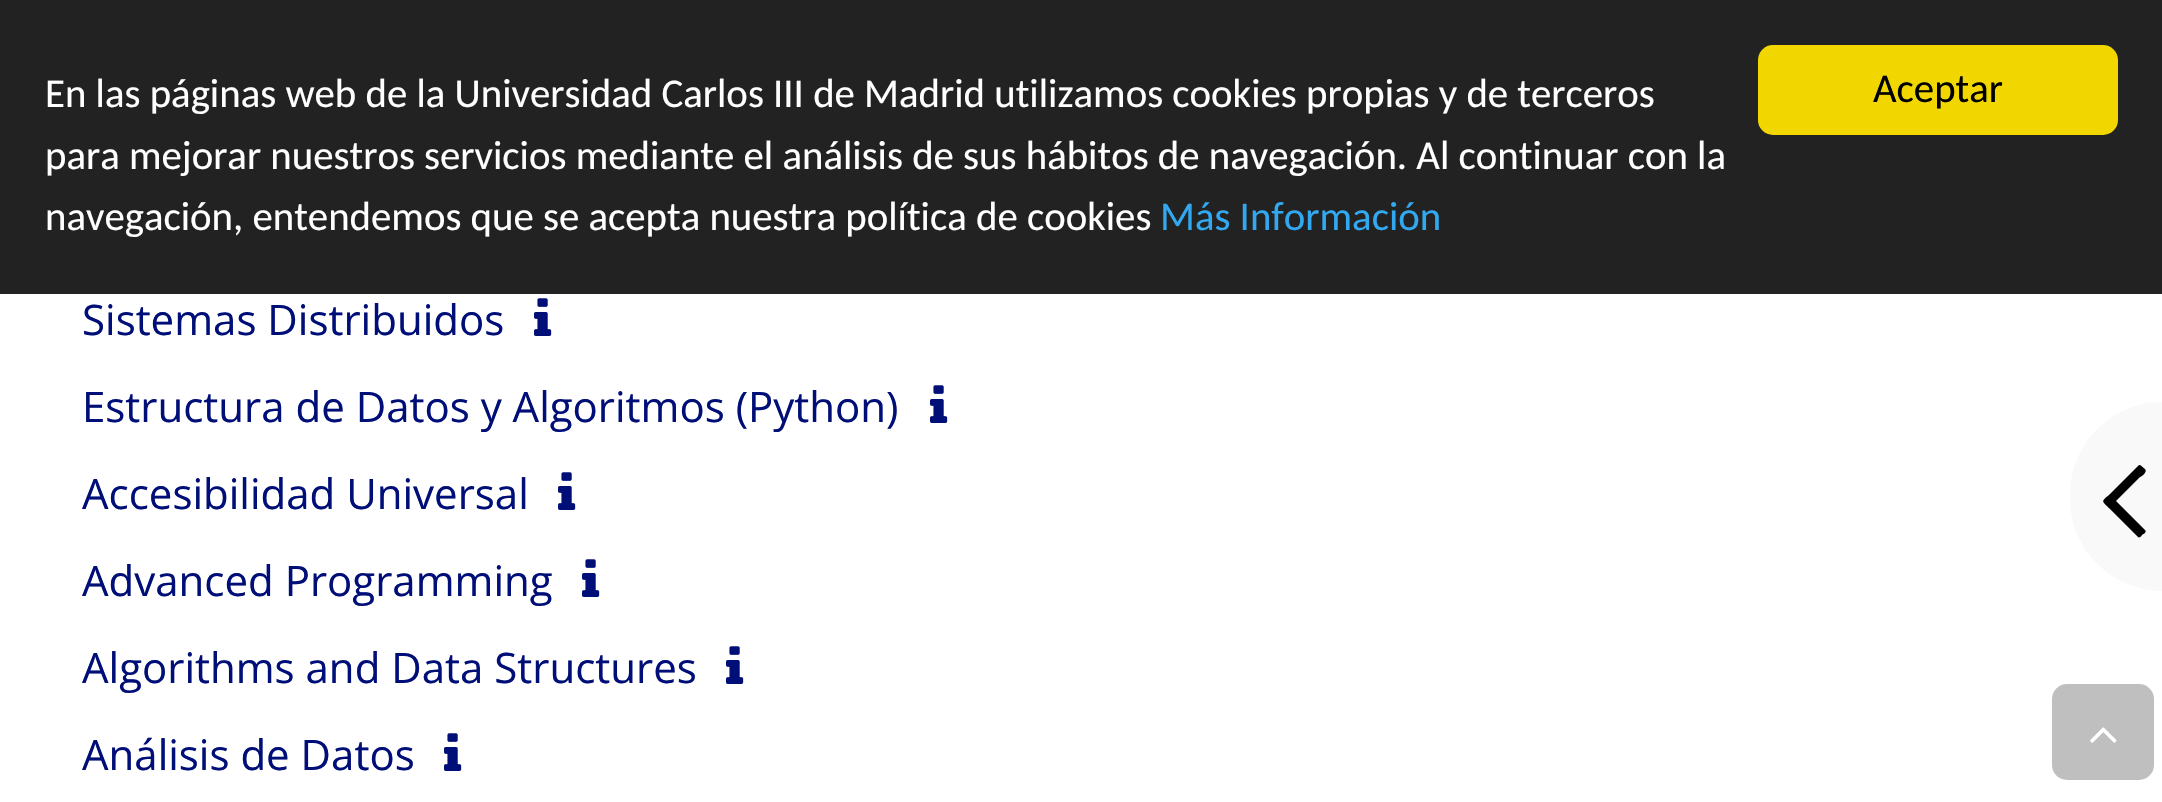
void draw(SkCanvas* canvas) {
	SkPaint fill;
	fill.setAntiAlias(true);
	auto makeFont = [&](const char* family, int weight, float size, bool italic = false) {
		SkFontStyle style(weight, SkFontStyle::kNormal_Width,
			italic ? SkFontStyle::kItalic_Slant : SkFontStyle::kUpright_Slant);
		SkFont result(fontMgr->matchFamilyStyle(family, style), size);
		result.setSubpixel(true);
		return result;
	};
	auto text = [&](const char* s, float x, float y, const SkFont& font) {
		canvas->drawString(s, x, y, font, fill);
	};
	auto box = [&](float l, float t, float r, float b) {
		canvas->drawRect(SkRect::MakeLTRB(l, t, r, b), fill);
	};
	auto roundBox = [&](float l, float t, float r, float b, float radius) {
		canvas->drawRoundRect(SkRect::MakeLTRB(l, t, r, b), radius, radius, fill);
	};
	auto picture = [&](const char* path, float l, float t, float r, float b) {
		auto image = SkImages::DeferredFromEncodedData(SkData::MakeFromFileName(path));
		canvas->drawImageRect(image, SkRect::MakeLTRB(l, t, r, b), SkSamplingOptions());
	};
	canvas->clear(0xFFFFFFFF);
	fill.setColor(0xFF222222);
	box(0, 0, 2162, 294);
	fill.setColor(0xFFF1D600);
	roundBox(1758, 45, 2118, 135, 15);
	picture("image0.png", 534, 298, 552, 336);
	picture("image0.png", 930, 385, 948, 423);
	picture("image0.png", 558, 472, 576, 510);
	picture("image0.png", 582, 559, 600, 597);
	picture("image0.png", 726, 646, 744, 684);
	picture("image0.png", 444, 733, 462, 771);
	fill.setColor(0xFFF9F9F9);
	canvas->drawPath(SkPathBuilder().moveTo(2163, 402).lineTo(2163, 591).cubicTo(2111.5f, 591, 2070, 549.5f, 2070, 498).lineTo(2070, 495).cubicTo(2070, 443.5f, 2111.5f, 402, 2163, 402).close().detach(), fill);
	fill.setColor(0xFF000000);
	canvas->drawPath(SkPathBuilder().moveTo(2145, 469).cubicTo(2148, 472, 2141, 477, 2140, 477).lineTo(2116, 501).lineTo(2145, 530).cubicTo(2147, 532, 2144, 534, 2142, 535).cubicTo(2141, 537, 2139, 538, 2138, 537).lineTo(2110, 509).cubicTo(2101, 500, 2101, 502, 2110, 494).lineTo(2138, 466).cubicTo(2140, 463, 2143, 468, 2145, 469).close().detach(), fill);
	fill.setColor(0xFFBFBFBF);
	roundBox(2052, 684, 2154, 780, 15);
	picture("image1.png", 2090, 727, 2117, 743);
	auto font1 = makeFont("Carlito", 400, 40.8f);
	fill.setColor(0xFFFFFFFF);
	text("En las páginas web de la Universidad Carlos III de Madrid utilizamos cookies propias y de terceros", 45, 107, font1);
	text("para mejorar nuestros servicios mediante el análisis de sus hábitos de navegación. Al continuar con la", 45, 169, font1);
	text("navegación, entendemos que se acepta nuestra política de cookies", 45, 230, font1);
	fill.setColor(0xFF31A8F0);
	text("Más Información", 1160, 230, font1);
	fill.setColor(0xFF000000);
	text("Aceptar", 1873, 102, font1);
	auto font2 = makeFont("Open Sans", 400, 42);
	fill.setColor(0xFF000E77);
	text("Sistemas Distribuidos", 82, 335, font2);
	text("Estructura de Datos y Algoritmos (Python)", 82, 422, font2);
	text("Accesibilidad Universal", 82, 509, font2);
	text("Advanced Programming", 82, 596, font2);
	text("Algorithms and Data Structures", 82, 683, font2);
	text("Análisis de Datos", 82, 770, font2);
}
